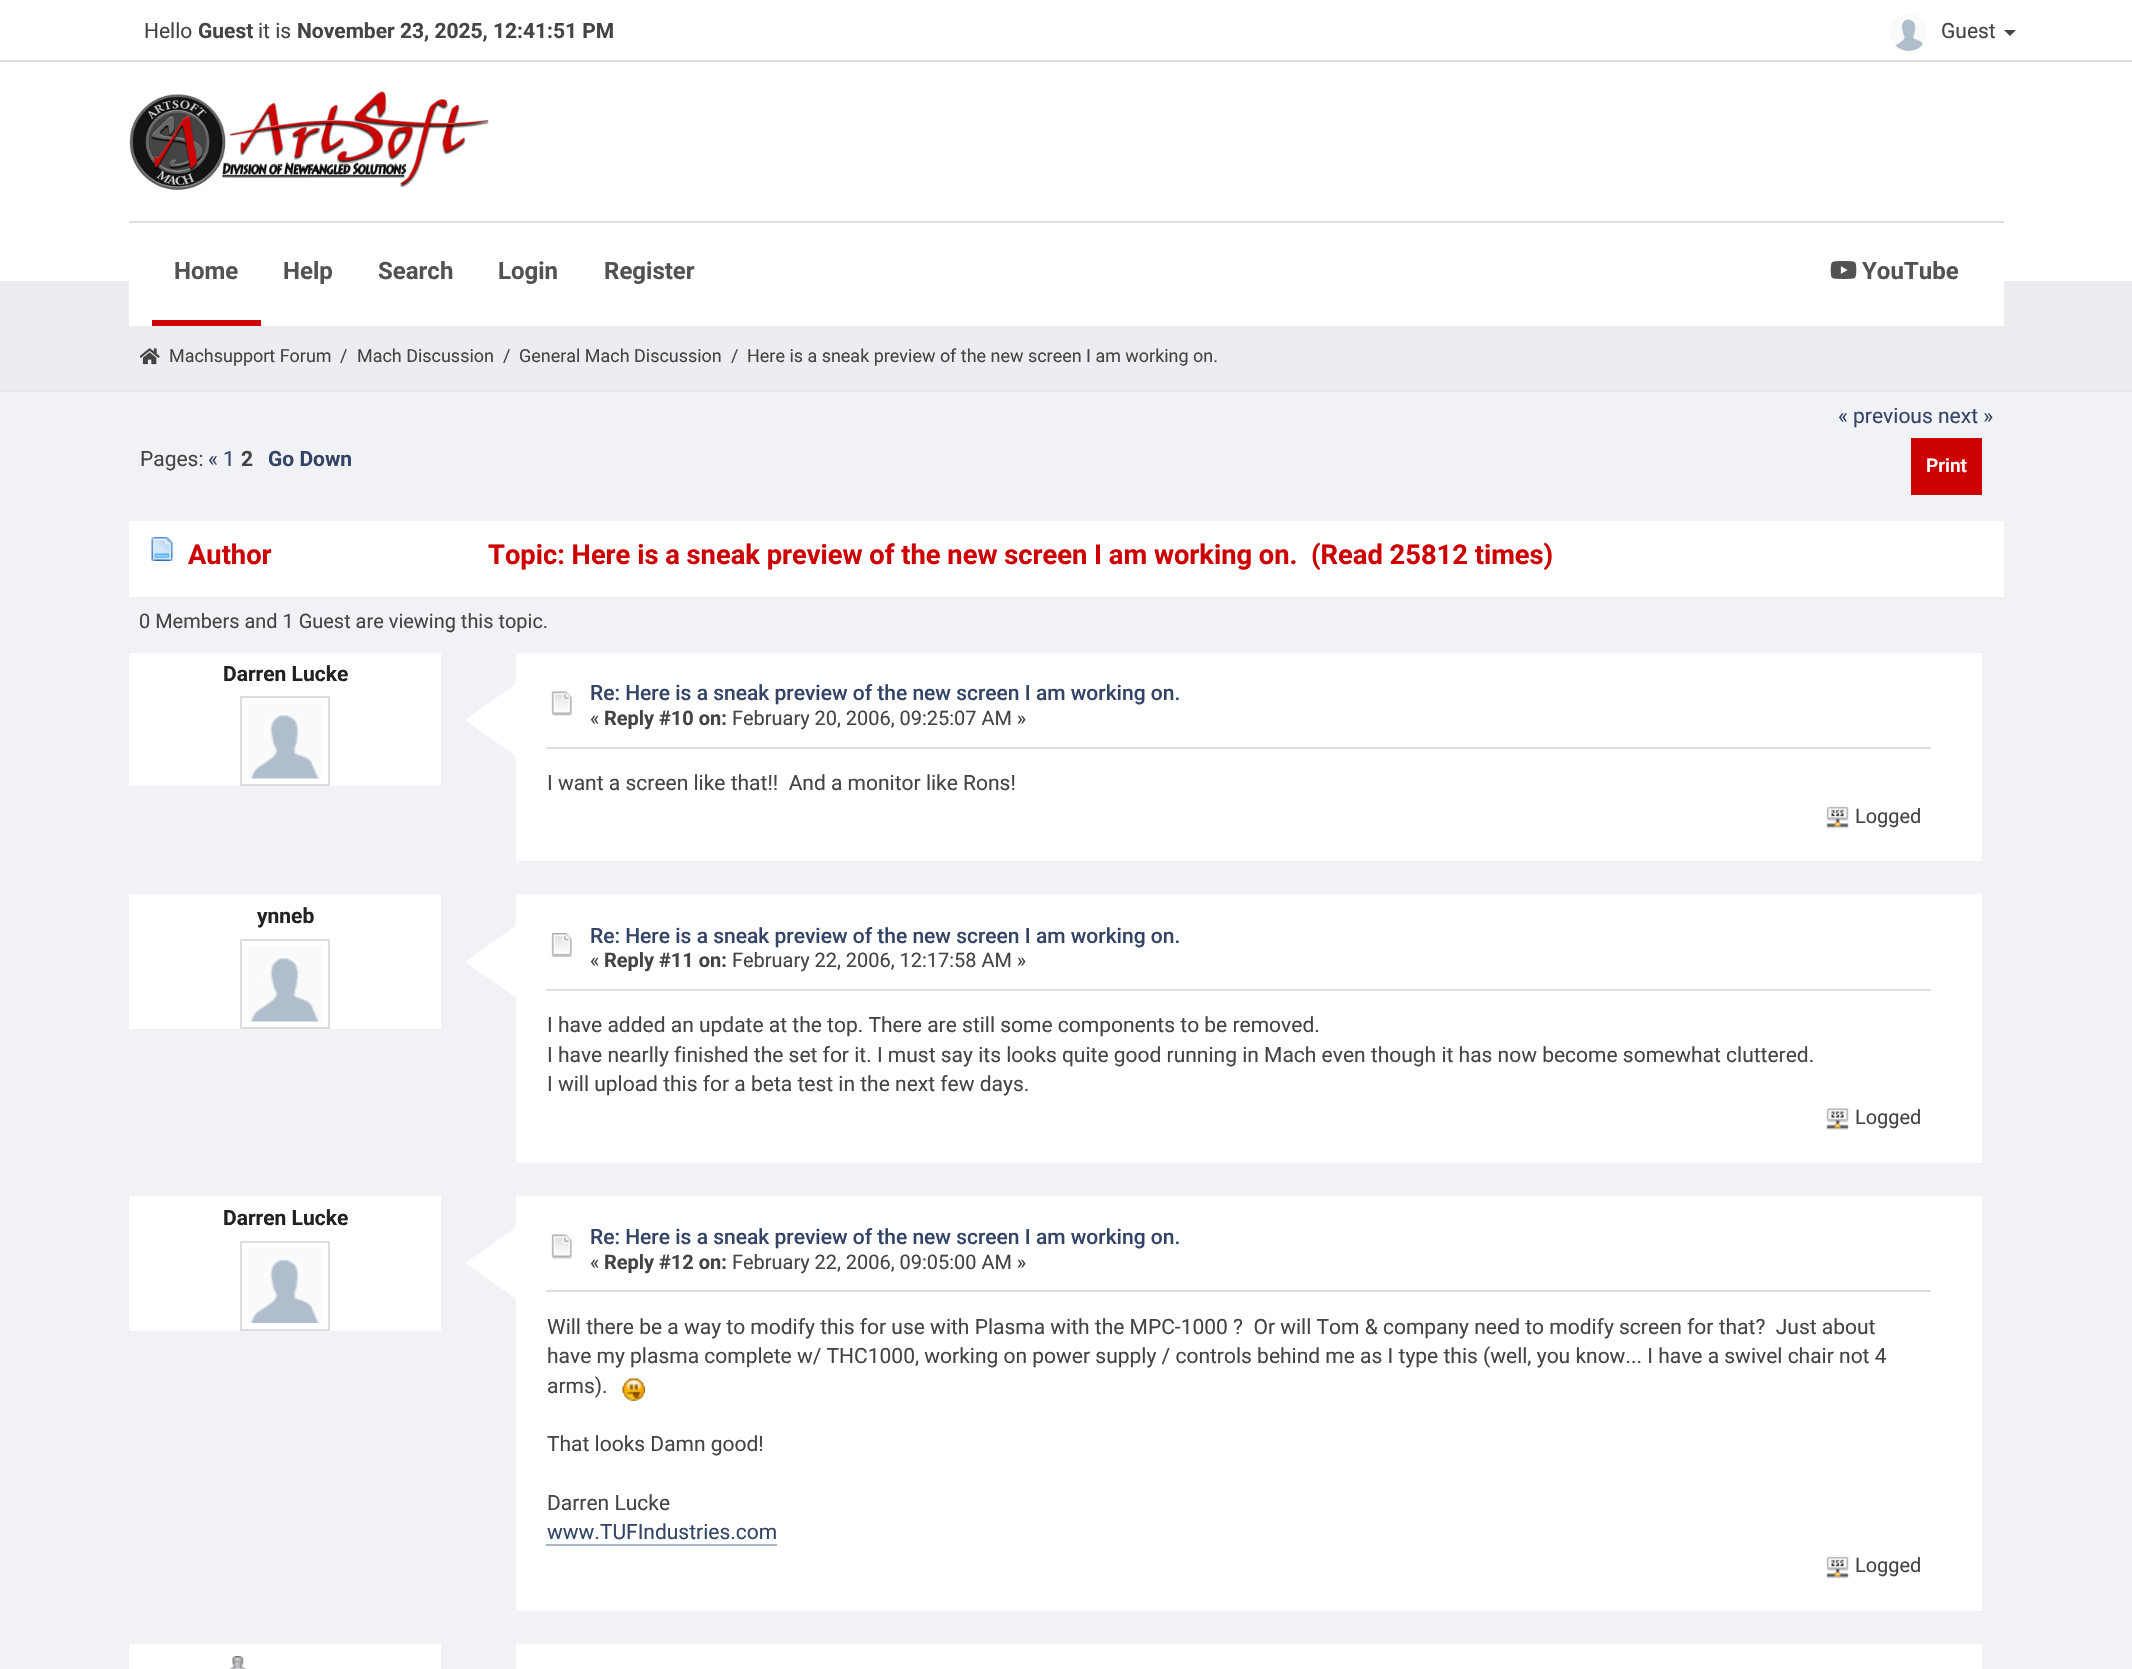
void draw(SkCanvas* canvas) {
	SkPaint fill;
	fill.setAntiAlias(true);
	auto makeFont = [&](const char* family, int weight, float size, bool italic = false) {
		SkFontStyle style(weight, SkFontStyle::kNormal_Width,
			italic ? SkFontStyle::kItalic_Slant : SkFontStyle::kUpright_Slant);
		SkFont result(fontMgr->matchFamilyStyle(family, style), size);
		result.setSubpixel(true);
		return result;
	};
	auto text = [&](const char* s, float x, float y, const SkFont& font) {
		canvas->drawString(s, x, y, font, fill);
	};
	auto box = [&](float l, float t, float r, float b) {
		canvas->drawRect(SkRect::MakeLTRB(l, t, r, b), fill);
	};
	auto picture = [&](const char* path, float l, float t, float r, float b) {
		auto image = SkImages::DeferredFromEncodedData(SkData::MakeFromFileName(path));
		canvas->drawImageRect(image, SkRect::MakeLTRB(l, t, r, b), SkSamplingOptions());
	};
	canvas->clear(0xFFF0F2F6);
	fill.setColor(0xFFFFFFFF);
	box(0, 0, 2132, 60);
	fill.setColor(0xFFDEDEDE);
	box(0, 60, 2132, 62);
	picture("image0.png", 1890, 14, 1927, 51);
	fill.setColor(0xFF444444);
	canvas->drawPath(SkPathBuilder().moveTo(2004, 30).lineTo(2016, 30).lineTo(2010, 36).close().detach(), fill);
	fill.setColor(0xFFFFFFFF);
	box(0, 62, 2132, 281);
	picture("image1.png", 129, 91, 489, 190);
	fill.setColor(0xFFEBEDF0);
	box(0, 281, 2132, 390);
	fill.setColor(0xFFFFFFFF);
	box(129, 281, 2004, 326);
	fill.setColor(0xFFDEDEDE);
	box(129, 221, 2004, 223);
	fill.setColor(0xFFCD0002);
	box(152, 320, 261, 326);
	picture("image2.png", 1830, 261, 1857, 279);
	fill.setColor(0xFFE4E6E9);
	box(0, 390, 2132, 392);
	picture("image3.png", 140, 348, 160, 365);
	fill.setColor(0xFFCD0002);
	box(1911, 438, 1982, 495);
	fill.setColor(0xFFFFFFFF);
	box(129, 521, 2004, 597);
	fill.setColor(0xFFEFEFEF);
	box(129, 597, 2004, 599);
	picture("image4.png", 151, 537, 173, 561);
	fill.setColor(0xFFFFFFFF);
	box(129, 653, 441, 786);
	fill.setStyle(SkPaint::kStroke_Style);
	fill.setStrokeWidth(2);
	fill.setColor(0xFFDDDDDD);
	canvas->drawRect(SkRect::MakeLTRB(241, 697, 329, 785), fill);
	picture("image5.png", 248, 704, 322, 779);
	fill.setStyle(SkPaint::kFill_Style);
	fill.setColor(0xFFFFFFFF);
	box(516, 653, 1982, 861);
	canvas->drawPath(SkPathBuilder().moveTo(518, 682).lineTo(518, 758).lineTo(465, 720).close().detach(), fill);
	picture("image6.png", 551, 691, 572, 716);
	fill.setColor(0xFFDEDEDE);
	box(546, 747, 1931, 749);
	picture("image7.png", 1826, 806, 1849, 829);
	fill.setColor(0xFFFFFFFF);
	box(129, 894, 441, 1029);
	fill.setStyle(SkPaint::kStroke_Style);
	fill.setColor(0xFFDDDDDD);
	canvas->drawRect(SkRect::MakeLTRB(241, 940, 329, 1028), fill);
	picture("image5.png", 248, 947, 322, 1022);
	fill.setStyle(SkPaint::kFill_Style);
	fill.setColor(0xFFFFFFFF);
	box(516, 894, 1982, 1163);
	canvas->drawPath(SkPathBuilder().moveTo(518, 924).lineTo(518, 999).lineTo(465, 962).close().detach(), fill);
	picture("image8.png", 551, 933, 572, 957);
	fill.setColor(0xFFDEDEDE);
	box(546, 989, 1931, 991);
	picture("image9.png", 1826, 1108, 1849, 1130);
	fill.setColor(0xFFFFFFFF);
	box(129, 1196, 441, 1331);
	fill.setStyle(SkPaint::kStroke_Style);
	fill.setColor(0xFFDDDDDD);
	canvas->drawRect(SkRect::MakeLTRB(241, 1242, 329, 1330), fill);
	picture("image10.png", 248, 1248, 322, 1323);
	fill.setStyle(SkPaint::kFill_Style);
	fill.setColor(0xFFFFFFFF);
	box(516, 1196, 1982, 1611);
	canvas->drawPath(SkPathBuilder().moveTo(518, 1226).lineTo(518, 1300).lineTo(465, 1263).close().detach(), fill);
	picture("image6.png", 551, 1234, 572, 1259);
	fill.setColor(0xFFDEDEDE);
	box(546, 1290, 1931, 1292);
	picture("image11.png", 622, 1378, 645, 1401);
	fill.setColor(0xFFA8B6CF);
	box(546, 1544, 777, 1546);
	picture("image7.png", 1826, 1556, 1849, 1579);
	fill.setColor(0xFFFFFFFF);
	box(129, 1644, 441, 1669);
	picture("image12.png", 229, 1656, 247, 1669);
	box(516, 1644, 1982, 1669);
	auto font1 = makeFont("Roboto", 400, 21);
	fill.setColor(0xFF444444);
	text("Hello", 144, 38, font1);
	auto font2 = makeFont("Roboto", 700, 21);
	text("Guest", 198, 38, font2);
	text("it is", 258, 38, font1);
	text("November 23, 2025, 12:41:51 PM", 297, 38, font2);
	text("Guest", 1941, 38, font1);
	auto font3 = makeFont("Roboto", 700, 24);
	fill.setColor(0xFF525252);
	text("Home", 174, 279, font3);
	text("Help", 283, 279, font3);
	text("Search", 378, 279, font3);
	text("Login", 498, 279, font3);
	text("Register", 604, 279, font3);
	text("YouTube", 1862, 279, font3);
	auto font4 = makeFont("Roboto", 400, 17.95f);
	fill.setColor(0xFF444444);
	text("Machsupport Forum", 169, 362, font4);
	text("/", 340, 362, font4);
	text("Mach Discussion", 357, 362, font4);
	text("/", 503, 362, font4);
	text("General Mach Discussion", 519, 362, font4);
	text("/", 731, 362, font4);
	text("Here is a sneak preview of the new screen I am working on.", 747, 362, font4);
	fill.setColor(0xFF334466);
	text("« previous next »", 1838, 423, font1);
	fill.setColor(0xFF444444);
	text("Pages:", 140, 466, font1);
	fill.setColor(0xFF334466);
	text("« 1", 208, 466, font1);
	fill.setColor(0xFF444444);
	text("2", 241, 466, font2);
	fill.setColor(0xFF334466);
	text("Go Down", 268, 466, font2);
	auto font5 = makeFont("Roboto", 600, 19);
	fill.setColor(0xFFFFFFFF);
	text("Print", 1926, 472, font5);
	auto font6 = makeFont("Roboto", 700, 27.3f);
	fill.setColor(0xFFCD0002);
	text("Author", 188, 564, font6);
	text("Topic: Here is a sneak preview of the new screen I am working on.  (Read 25812 times)", 488, 564, font6);
	auto font7 = makeFont("Roboto", 400, 19.95f);
	fill.setColor(0xFF444444);
	text("0 Members and 1 Guest are viewing this topic.", 139, 628, font7);
	fill.setColor(0xFF222222);
	text("Darren Lucke", 223, 681, font2);
	auto font8 = makeFont("Roboto", 500, 21);
	fill.setColor(0xFF334466);
	text("Re: Here is a sneak preview of the new screen I am working on.", 590, 700, font8);
	fill.setColor(0xFF444444);
	text("«", 590, 725, font7);
	auto font9 = makeFont("Roboto", 700, 19.95f);
	text("Reply #10 on:", 604, 725, font9);
	text("February 20, 2006, 09:25:07 AM »", 732, 725, font7);
	text("I want a screen like that!!  And a monitor like Rons!", 547, 790, font1);
	text("Logged", 1855, 823, font7);
	fill.setColor(0xFF222222);
	text("ynneb", 257, 923, font2);
	fill.setColor(0xFF334466);
	text("Re: Here is a sneak preview of the new screen I am working on.", 590, 943, font8);
	fill.setColor(0xFF444444);
	text("«", 590, 967, font7);
	text("Reply #11 on:", 604, 967, font9);
	text("February 22, 2006, 12:17:58 AM »", 732, 967, font7);
	text("I have added an update at the top. There are still some components to be removed.", 547, 1032, font1);
	text("I have nearlly finished the set for it. I must say its looks quite good running in Mach even though it has now become somewhat cluttered.", 547, 1062, font1);
	text("I will upload this for a beta test in the next few days.", 547, 1091, font1);
	text("Logged", 1855, 1124, font7);
	fill.setColor(0xFF222222);
	text("Darren Lucke", 223, 1225, font2);
	fill.setColor(0xFF334466);
	text("Re: Here is a sneak preview of the new screen I am working on.", 590, 1244, font8);
	fill.setColor(0xFF444444);
	text("«", 590, 1269, font7);
	text("Reply #12 on:", 604, 1269, font9);
	text("February 22, 2006, 09:05:00 AM »", 732, 1269, font7);
	text("Will there be a way to modify this for use with Plasma with the MPC-1000 ?  Or will Tom & company need to modify screen for that?  Just about", 547, 1334, font1);
	text("have my plasma complete w/ THC1000, working on power supply / controls behind me as I type this (well, you know... I have a swivel chair not 4", 547, 1363, font1);
	text("arms).", 547, 1393, font1);
	text("That looks Damn good!", 547, 1451, font1);
	text("Darren Lucke", 547, 1510, font1);
	fill.setColor(0xFF334466);
	text("www.TUFIndustries.com", 547, 1539, font1);
	fill.setColor(0xFF444444);
	text("Logged", 1855, 1572, font7);
}
